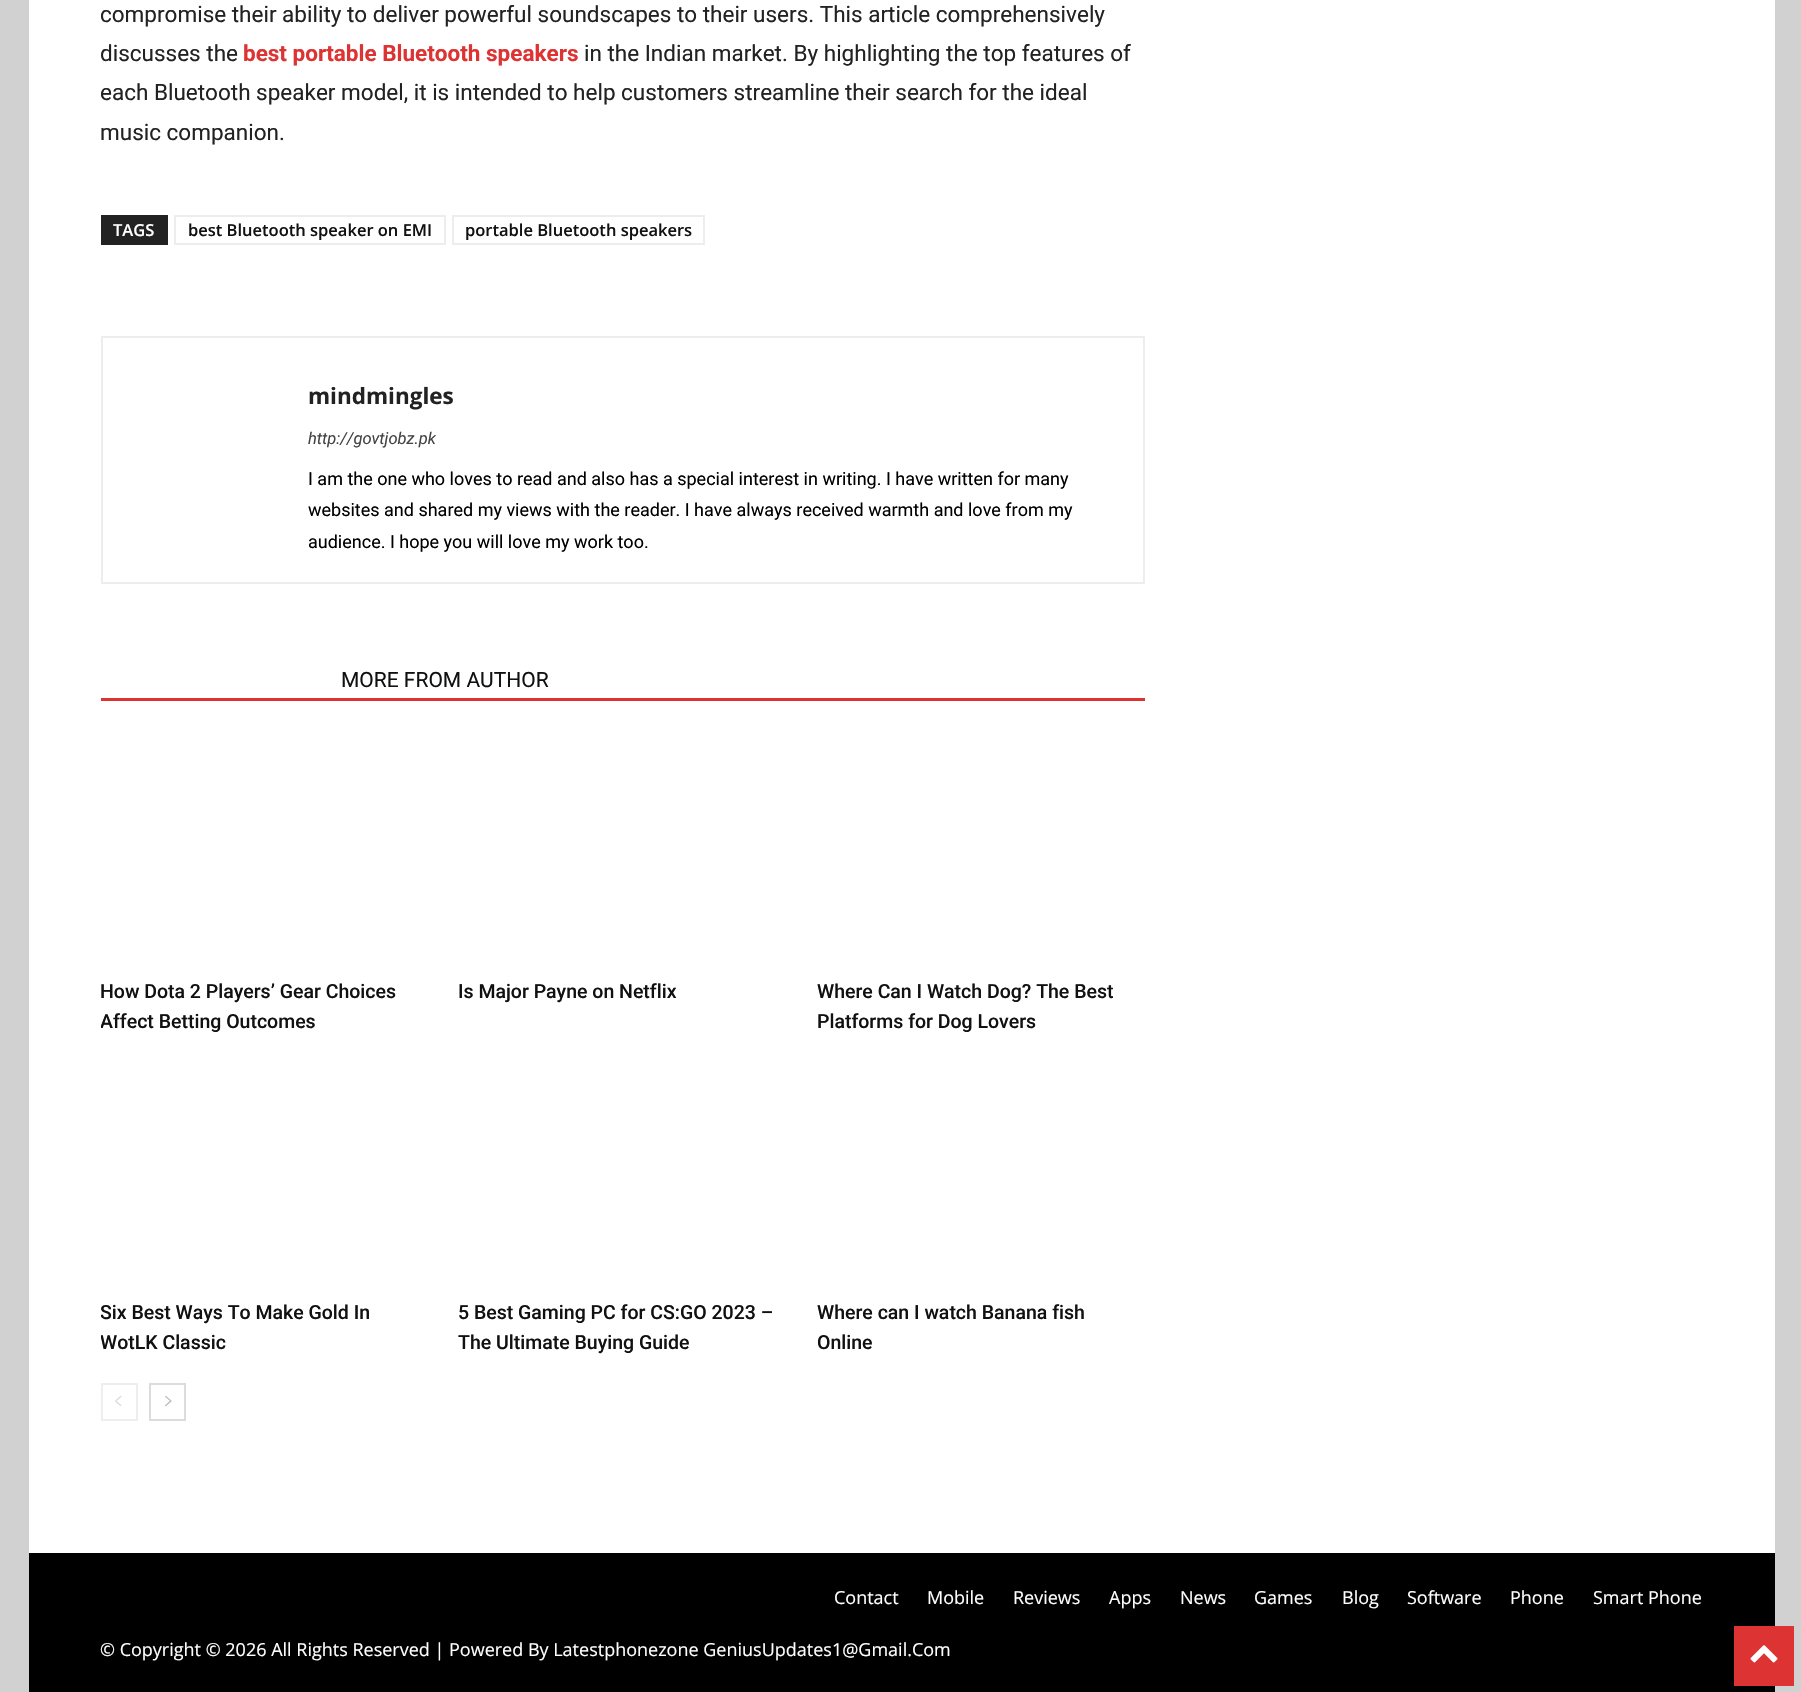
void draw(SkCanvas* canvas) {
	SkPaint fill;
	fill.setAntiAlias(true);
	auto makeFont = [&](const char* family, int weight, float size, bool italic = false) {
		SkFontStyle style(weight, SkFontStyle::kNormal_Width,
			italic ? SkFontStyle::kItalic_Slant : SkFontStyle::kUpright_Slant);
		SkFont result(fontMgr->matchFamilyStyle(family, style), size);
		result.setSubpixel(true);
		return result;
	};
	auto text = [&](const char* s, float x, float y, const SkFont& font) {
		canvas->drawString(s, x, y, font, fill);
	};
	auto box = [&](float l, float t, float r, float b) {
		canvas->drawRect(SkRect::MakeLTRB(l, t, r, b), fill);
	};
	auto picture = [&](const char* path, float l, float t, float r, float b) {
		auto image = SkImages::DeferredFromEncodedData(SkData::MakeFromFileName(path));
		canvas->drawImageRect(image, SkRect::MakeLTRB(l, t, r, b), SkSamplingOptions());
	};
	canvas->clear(0xFFD1D1D1);
	fill.setColor(0xFFFFFFFF);
	box(29, 0, 1775, 1553);
	fill.setColor(0xFF222222);
	box(101, 215, 168, 245);
	fill.setStyle(SkPaint::kStroke_Style);
	fill.setStrokeWidth(2);
	fill.setColor(0xFFEDEDED);
	canvas->drawRect(SkRect::MakeLTRB(175, 216, 445, 244), fill);
	canvas->drawRect(SkRect::MakeLTRB(453, 216, 704, 244), fill);
	canvas->drawRect(SkRect::MakeLTRB(102, 337, 1144, 583), fill);
	fill.setStyle(SkPaint::kFill_Style);
	fill.setColor(0xFFDD3333);
	box(101, 698, 1145, 701);
	fill.setStyle(SkPaint::kStroke_Style);
	fill.setColor(0xFFEEEEEE);
	canvas->drawRect(SkRect::MakeLTRB(102, 1384, 137, 1420), fill);
	picture("image0.png", 115, 1395, 122, 1406);
	fill.setColor(0xFFDCDCDC);
	canvas->drawRect(SkRect::MakeLTRB(150, 1384, 185, 1420), fill);
	picture("image1.png", 165, 1396, 172, 1407);
	fill.setStyle(SkPaint::kFill_Style);
	fill.setColor(0xFF000000);
	box(29, 1553, 1775, 1692);
	fill.setColor(0xFFDD3333);
	box(1734, 1626, 1794, 1686);
	picture("image2.png", 1750, 1645, 1778, 1663);
	auto font1 = makeFont("Roboto", 400, 22.5f);
	fill.setColor(0xFF222222);
	text("compromise their ability to deliver powerful soundscapes to their users. This article comprehensively", 100, 22, font1);
	text("discusses the", 100, 61, font1);
	auto font2 = makeFont("Roboto", 700, 22.5f);
	fill.setColor(0xFFDD3333);
	text("best portable Bluetooth speakers", 243, 61, font2);
	fill.setColor(0xFF222222);
	text("in the Indian market. By highlighting the top features of", 584, 61, font1);
	text("each Bluetooth speaker model, it is intended to help customers streamline their search for the ideal", 100, 100, font1);
	text("music companion.", 100, 140, font1);
	auto font3 = makeFont("Open Sans", 600, 16.5f);
	fill.setColor(0xFFFFFFFF);
	text("TAGS", 113, 236, font3);
	fill.setColor(0xFF111111);
	text("best Bluetooth speaker on EMI", 188, 236, font3);
	text("portable Bluetooth speakers", 465, 236, font3);
	auto font4 = makeFont("Open Sans", 700, 22.5f);
	fill.setColor(0xFF222222);
	text("mindmingles", 308, 404, font4);
	auto font5 = makeFont("Roboto", 400, 16.5f, true);
	fill.setColor(0xFF444444);
	text("http://govtjobz.pk", 308, 444, font5);
	auto font6 = makeFont("Roboto", 400, 18);
	fill.setColor(0xFF000000);
	text("I am the one who loves to read and also has a special interest in writing. I have written for many", 308, 485, font6);
	text("websites and shared my views with the reader. I have always received warmth and love from my", 308, 516, font6);
	text("audience. I hope you will love my work too.", 308, 548, font6);
	auto font7 = makeFont("Roboto", 400, 21);
	fill.setColor(0xFF111111);
	text("MORE FROM AUTHOR", 341, 687, font7);
	auto font8 = makeFont("Roboto", 500, 19.5f);
	text("How Dota 2 Players’ Gear Choices", 100, 998, font8);
	canvas->save();
	canvas->clipRect(SkRect::MakeLTRB(101, 656, 1145, 1421));
	text("Affect Betting Outcomes", 100, 1028, font8);
	canvas->restore();
	text("Is Major Payne on Netflix", 458, 998, font8);
	text("Where Can I Watch Dog? The Best", 817, 998, font8);
	text("Platforms for Dog Lovers", 817, 1028, font8);
	canvas->save();
	canvas->clipRect(SkRect::MakeLTRB(101, 656, 1145, 1421));
	text("Six Best Ways To Make Gold In", 100, 1319, font8);
	text("WotLK Classic", 100, 1349, font8);
	canvas->restore();
	text("5 Best Gaming PC for CS:GO 2023 –", 458, 1319, font8);
	text("The Ultimate Buying Guide", 458, 1349, font8);
	text("Where can I watch Banana fish", 817, 1319, font8);
	text("Online", 817, 1349, font8);
	auto font9 = makeFont("Open Sans", 400, 18);
	fill.setColor(0xFFFFFFFF);
	text("Contact", 834, 1604, font9);
	text("Mobile", 927, 1604, font9);
	text("Reviews", 1013, 1604, font9);
	text("Apps", 1109, 1604, font9);
	text("News", 1180, 1604, font9);
	text("Games", 1254, 1604, font9);
	text("Blog", 1342, 1604, font9);
	text("Software", 1407, 1604, font9);
	text("Phone", 1510, 1604, font9);
	text("Smart Phone", 1593, 1604, font9);
	text("© Copyright © 2026 All Rights Reserved | Powered By Latestphonezone GeniusUpdates1@Gmail.Com", 100, 1656, font9);
}
